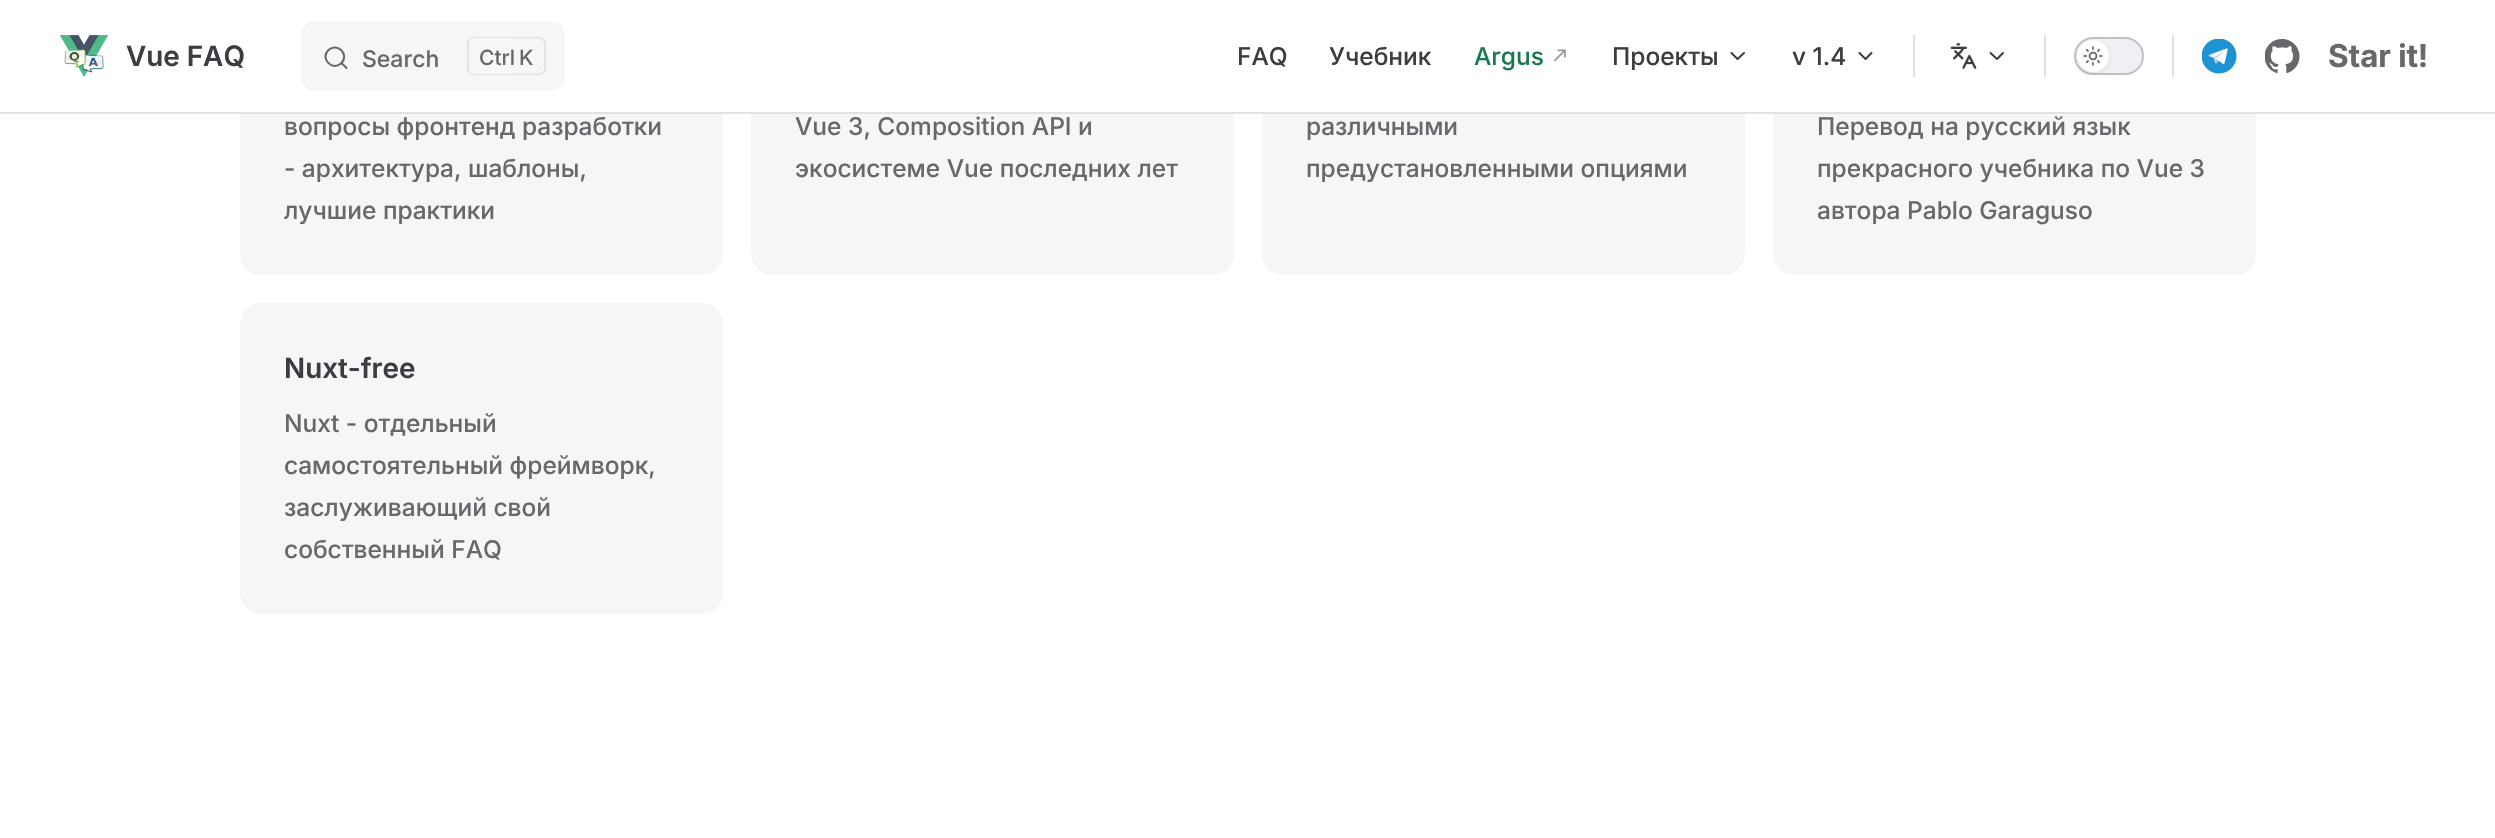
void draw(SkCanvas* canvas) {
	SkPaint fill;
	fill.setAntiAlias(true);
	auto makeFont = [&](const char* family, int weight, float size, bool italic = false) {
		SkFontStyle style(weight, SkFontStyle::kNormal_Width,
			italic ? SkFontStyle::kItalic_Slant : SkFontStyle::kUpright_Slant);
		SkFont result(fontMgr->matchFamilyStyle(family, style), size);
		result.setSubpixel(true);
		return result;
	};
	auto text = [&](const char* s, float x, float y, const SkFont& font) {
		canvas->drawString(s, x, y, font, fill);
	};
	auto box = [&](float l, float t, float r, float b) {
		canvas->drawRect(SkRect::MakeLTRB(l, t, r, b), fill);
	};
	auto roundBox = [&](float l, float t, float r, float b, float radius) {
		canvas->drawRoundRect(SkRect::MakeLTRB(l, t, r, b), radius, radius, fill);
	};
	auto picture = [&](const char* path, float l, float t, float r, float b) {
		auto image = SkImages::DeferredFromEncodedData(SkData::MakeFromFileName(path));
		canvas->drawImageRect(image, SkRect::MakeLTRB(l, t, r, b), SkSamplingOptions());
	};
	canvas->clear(0xFFFFFFFF);
	fill.setColor(0xFFF6F6F7);
	roundBox(240, -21, 723, 275, 21);
	roundBox(751, -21, 1234, 275, 21);
	roundBox(1262, -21, 1745, 275, 21);
	roundBox(1773, -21, 2256, 275, 21);
	fill.setColor(0xFFFFFFFF);
	box(240, 0, 2256, 112);
	picture("image0.png", 59, 35, 109, 77);
	fill.setColor(0xFFF6F6F7);
	roundBox(301, 21, 565, 91, 14);
	fill.setStyle(SkPaint::kStroke_Style);
	fill.setStrokeWidth(2);
	fill.setStrokeCap(SkPaint::kRound_Cap);
	fill.setStrokeJoin(SkPaint::kRound_Join);
	fill.setColor(0xFF67676C);
	canvas->drawPath(SkPathBuilder().moveTo(341.5f, 63).lineTo(346.5f, 68).lineTo(341.5f, 63).cubicTo(332.5f, 72, 319.5f, 58, 328.5f, 50).cubicTo(337.5f, 42, 349.5f, 54.5f, 341.5f, 63).close().detach(), fill);
	fill.setStyle(SkPaint::kFill_Style);
	fill.setColor(0xFFE2E2E3);
	canvas->drawPath(SkPathBuilder(SkPathFillType::kEvenOdd).moveTo(474, 37).lineTo(514, 37).lineTo(514, 75).lineTo(474, 75).cubicTo(470, 75, 467, 72, 467, 68).lineTo(467, 44).cubicTo(467, 40, 470, 37, 474, 37).close().moveTo(474, 38).lineTo(514, 38).lineTo(514, 74).lineTo(474, 74).cubicTo(471, 74, 469, 71, 469, 68).lineTo(469, 44).cubicTo(469, 41, 471, 38, 474, 38).close().detach(), fill);
	canvas->drawPath(SkPathBuilder(SkPathFillType::kEvenOdd).moveTo(514.5f, 37).lineTo(539, 37).cubicTo(543, 37, 546, 40, 546, 44).lineTo(546, 68).cubicTo(546, 72, 543, 75, 539, 75).lineTo(514.5f, 75).close().moveTo(514.5f, 38.5f).lineTo(539, 38.5f).cubicTo(542, 38.5f, 544, 41, 544, 44).lineTo(544, 68).cubicTo(544, 71, 542, 73.5f, 539, 73.5f).lineTo(514.5f, 73.5f).close().detach(), fill);
	picture("image1.png", 1553, 49, 1566, 62);
	fill.setStyle(SkPaint::kStroke_Style);
	fill.setColor(0xFF3C3C43);
	canvas->drawPath(SkPathBuilder().moveTo(1731.5f, 53).lineTo(1737.5f, 59).lineTo(1744, 53).detach(), fill);
	canvas->drawPath(SkPathBuilder().moveTo(1859.5f, 53).lineTo(1865.5f, 59).lineTo(1871.5f, 53).detach(), fill);
	fill.setStyle(SkPaint::kFill_Style);
	fill.setColor(0xFFE2E2E3);
	box(1913, 35, 1915, 77);
	picture("image2.png", 1950, 43, 1977, 69);
	fill.setStyle(SkPaint::kStroke_Style);
	fill.setColor(0xFF3C3C43);
	canvas->drawPath(SkPathBuilder().moveTo(1990.5f, 53).lineTo(1997, 59).lineTo(2003, 53).detach(), fill);
	fill.setStyle(SkPaint::kFill_Style);
	fill.setColor(0xFFE2E2E3);
	box(2044, 35, 2046, 77);
	fill.setColor(0xFFEFF0F3);
	canvas->drawRoundRect(SkRect::MakeLTRB(2075, 38, 2143, 74), 18, 18, fill);
	fill.setStyle(SkPaint::kStroke_Style);
	fill.setStrokeCap(SkPaint::kButt_Cap);
	fill.setStrokeJoin(SkPaint::kMiter_Join);
	fill.setColor(0xFFC2C2C4);
	canvas->drawRoundRect(SkRect::MakeLTRB(2075, 38, 2143, 74), 18, 18, fill);
	fill.setStyle(SkPaint::kFill_Style);
	fill.setColor(0x0F000000);
	fill.setMaskFilter(SkMaskFilter::MakeBlur(kNormal_SkBlurStyle, 2));
	canvas->drawRoundRect(SkRect::MakeLTRB(2077, 42, 2109, 74), 16, 16, fill);
	fill.setMaskFilter(nullptr);
	fill.setColor(0xFFFFFFFF);
	canvas->drawCircle(2093, 56, 16, fill);
	picture("image3.png", 2083, 46, 2103, 66);
	fill.setColor(0xFFE2E2E3);
	box(2172, 35, 2174, 77);
	picture("image4.png", 2202, 39, 2237, 74);
	picture("image5.png", 2265, 39, 2300, 74);
	box(0, 112, 2495, 114);
	fill.setColor(0xFFF6F6F7);
	roundBox(240, 303, 723, 614, 21);
	auto font1 = makeFont("Inter", 600, 28);
	fill.setColor(0xFF3C3C43);
	text("Vue FAQ", 126, 66, font1);
	auto font2 = makeFont("Inter", 500, 23);
	fill.setColor(0xFF67676C);
	text("Search", 362, 67, font2);
	auto font3 = makeFont("Inter", 500, 21);
	text("Ctrl", 479, 65, font3);
	text("K", 519, 65, font3);
	auto font4 = makeFont("Inter", 500, 24.5f);
	fill.setColor(0xFF3C3C43);
	text("FAQ", 1237, 65, font4);
	text("Учебник", 1329, 65, font4);
	fill.setColor(0xFF18794E);
	text("Argus", 1474, 65, font4);
	fill.setColor(0xFF3C3C43);
	text("Проекты", 1612, 65, font4);
	text("v 1.4", 1792, 65, font4);
	auto font5 = makeFont("Inter", 700, 31.5f);
	fill.setColor(0xFF67676C);
	text("Star it!", 2328, 67, font5);
	text("вопросы фронтенд разработки", 284, 135, font4);
	text("- архитектура, шаблоны,", 284, 177, font4);
	text("лучшие практики", 284, 219, font4);
	text("Vue 3, Composition API и", 795, 135, font4);
	text("экосистеме Vue последних лет", 795, 177, font4);
	text("различными", 1306, 135, font4);
	text("предустановленными опциями", 1306, 177, font4);
	text("Перевод на русский язык", 1817, 135, font4);
	text("прекрасного учебника по Vue 3", 1817, 177, font4);
	text("автора Pablo Garaguso", 1817, 219, font4);
	fill.setColor(0xFF3C3C43);
	text("Nuxt-free", 284, 378, font1);
	fill.setColor(0xFF67676C);
	text("Nuxt - отдельный", 284, 432, font4);
	text("самостоятельный фреймворк,", 284, 474, font4);
	text("заслуживающий свой", 284, 516, font4);
	text("собственный FAQ", 284, 558, font4);
}
